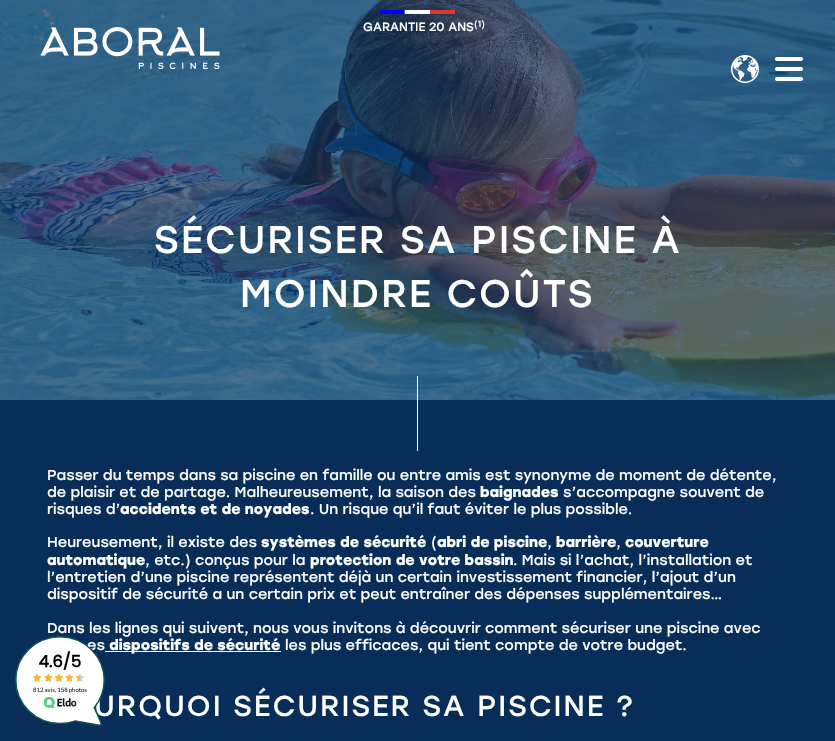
void draw(SkCanvas* canvas) {
	SkPaint fill;
	fill.setAntiAlias(true);
	auto makeFont = [&](const char* family, int weight, float size, bool italic = false) {
		SkFontStyle style(weight, SkFontStyle::kNormal_Width,
			italic ? SkFontStyle::kItalic_Slant : SkFontStyle::kUpright_Slant);
		SkFont result(fontMgr->matchFamilyStyle(family, style), size);
		result.setSubpixel(true);
		return result;
	};
	auto text = [&](const char* s, float x, float y, const SkFont& font) {
		canvas->drawString(s, x, y, font, fill);
	};
	auto spacedText = [&](const char* s, float x, float y, const SkFont& font, const SkPaint& ink, float letter, float word) {
		std::vector<SkGlyphID> glyphs(font.countText(s, strlen(s), SkTextEncoding::kUTF8));
		std::vector<float> xs(glyphs.size());
		font.textToGlyphs(s, strlen(s), SkTextEncoding::kUTF8, glyphs);
		font.getXPos(glyphs, xs, x);
		float extra = 0;
		for (size_t i = 0; i < glyphs.size(); i++) {
			xs[i] += extra;
			extra += letter + word * (glyphs[i] == font.unicharToGlyph(' '));
		}
		canvas->drawTextBlob(SkTextBlob::MakeFromPosHGlyphs(glyphs, xs, y, font), 0, 0, ink);
	};
	auto box = [&](float l, float t, float r, float b) {
		canvas->drawRect(SkRect::MakeLTRB(l, t, r, b), fill);
	};
	auto picture = [&](const char* path, float l, float t, float r, float b) {
		auto image = SkImages::DeferredFromEncodedData(SkData::MakeFromFileName(path));
		canvas->drawImageRect(image, SkRect::MakeLTRB(l, t, r, b), SkSamplingOptions());
	};
	canvas->clear(0xFF092D59);
	picture("image4.png", 0, 0, 835, 400);
	picture("image5.png", 0, 0, 835, 400);
	picture("image0.png", 380, 10, 455, 14);
	picture("image1.png", 40, 27, 220, 69);
	picture("image2.png", 731, 55, 759, 83);
	picture("image3.png", 775, 57, 803, 81);
	fill.setColor(0xFFFFFFFF);
	box(417, 376, 418, 451);
	box(105, 651, 281, 652);
	auto font1 = makeFont("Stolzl", 400, 12);
	text("GARANTIE 20 ANS", 363, 31, font1);
	auto font2 = makeFont("Stolzl", 400, 9);
	text("(1)", 474, 27, font2);
	auto font3 = makeFont("Stolzl", 400, 38.4f);
	spacedText("SÉCURISER SA PISCINE À", 154, 253, font3, fill, 2, 0);
	spacedText("MOINDRE COÛTS", 240, 307, font3, fill, 2, 0);
	auto font4 = makeFont("Stolzl", 400, 14.4f);
	text("Passer du temps dans sa piscine en famille ou entre amis est synonyme de moment de détente,", 47, 480, font4);
	text("de plaisir et de partage. Malheureusement, la saison des", 47, 497, font4);
	auto font5 = makeFont("Stolzl", 700, 14.4f);
	text("baignades", 480, 497, font5);
	text("s’accompagne souvent de", 563, 497, font4);
	text("risques d’", 47, 514, font4);
	text("accidents et de noyades", 120, 514, font5);
	text(". Un risque qu’il faut éviter le plus possible.", 310, 514, font4);
	text("Heureusement, il existe des", 47, 547, font4);
	text("systèmes de sécurité", 261, 547, font5);
	text("(", 431, 547, font4);
	text("abri de piscine", 437, 547, font5);
	text(",", 547, 547, font4);
	text("barrière", 556, 547, font5);
	text(",", 616, 547, font4);
	text("couverture", 625, 547, font5);
	text("automatique", 47, 565, font5);
	text(", etc.) conçus pour la", 145, 565, font4);
	text("protection de votre bassin", 310, 565, font5);
	text(". Mais si l’achat, l’installation et", 513, 565, font4);
	text("l’entretien d’une piscine représentent déjà un certain investissement financier, l’ajout d’un", 47, 582, font4);
	text("dispositif de sécurité a un certain prix et peut entraîner des dépenses supplémentaires…", 47, 599, font4);
	text("Dans les lignes qui suivent, nous vous invitons à découvrir comment sécuriser une piscine avec", 47, 633, font4);
	text("es", 87, 650, font4);
	text("dispositifs de sécurité", 109, 650, font5);
	text("les plus efficaces, qui tient compte de votre budget.", 285, 650, font4);
	auto font6 = makeFont("Stolzl", 400, 28.75f);
	spacedText("URQUOI SÉCURISER SA PISCINE ?", 94, 716, font6, fill, 2, 0);
	picture("image6.png", 15, 636, 105, 726);
}
